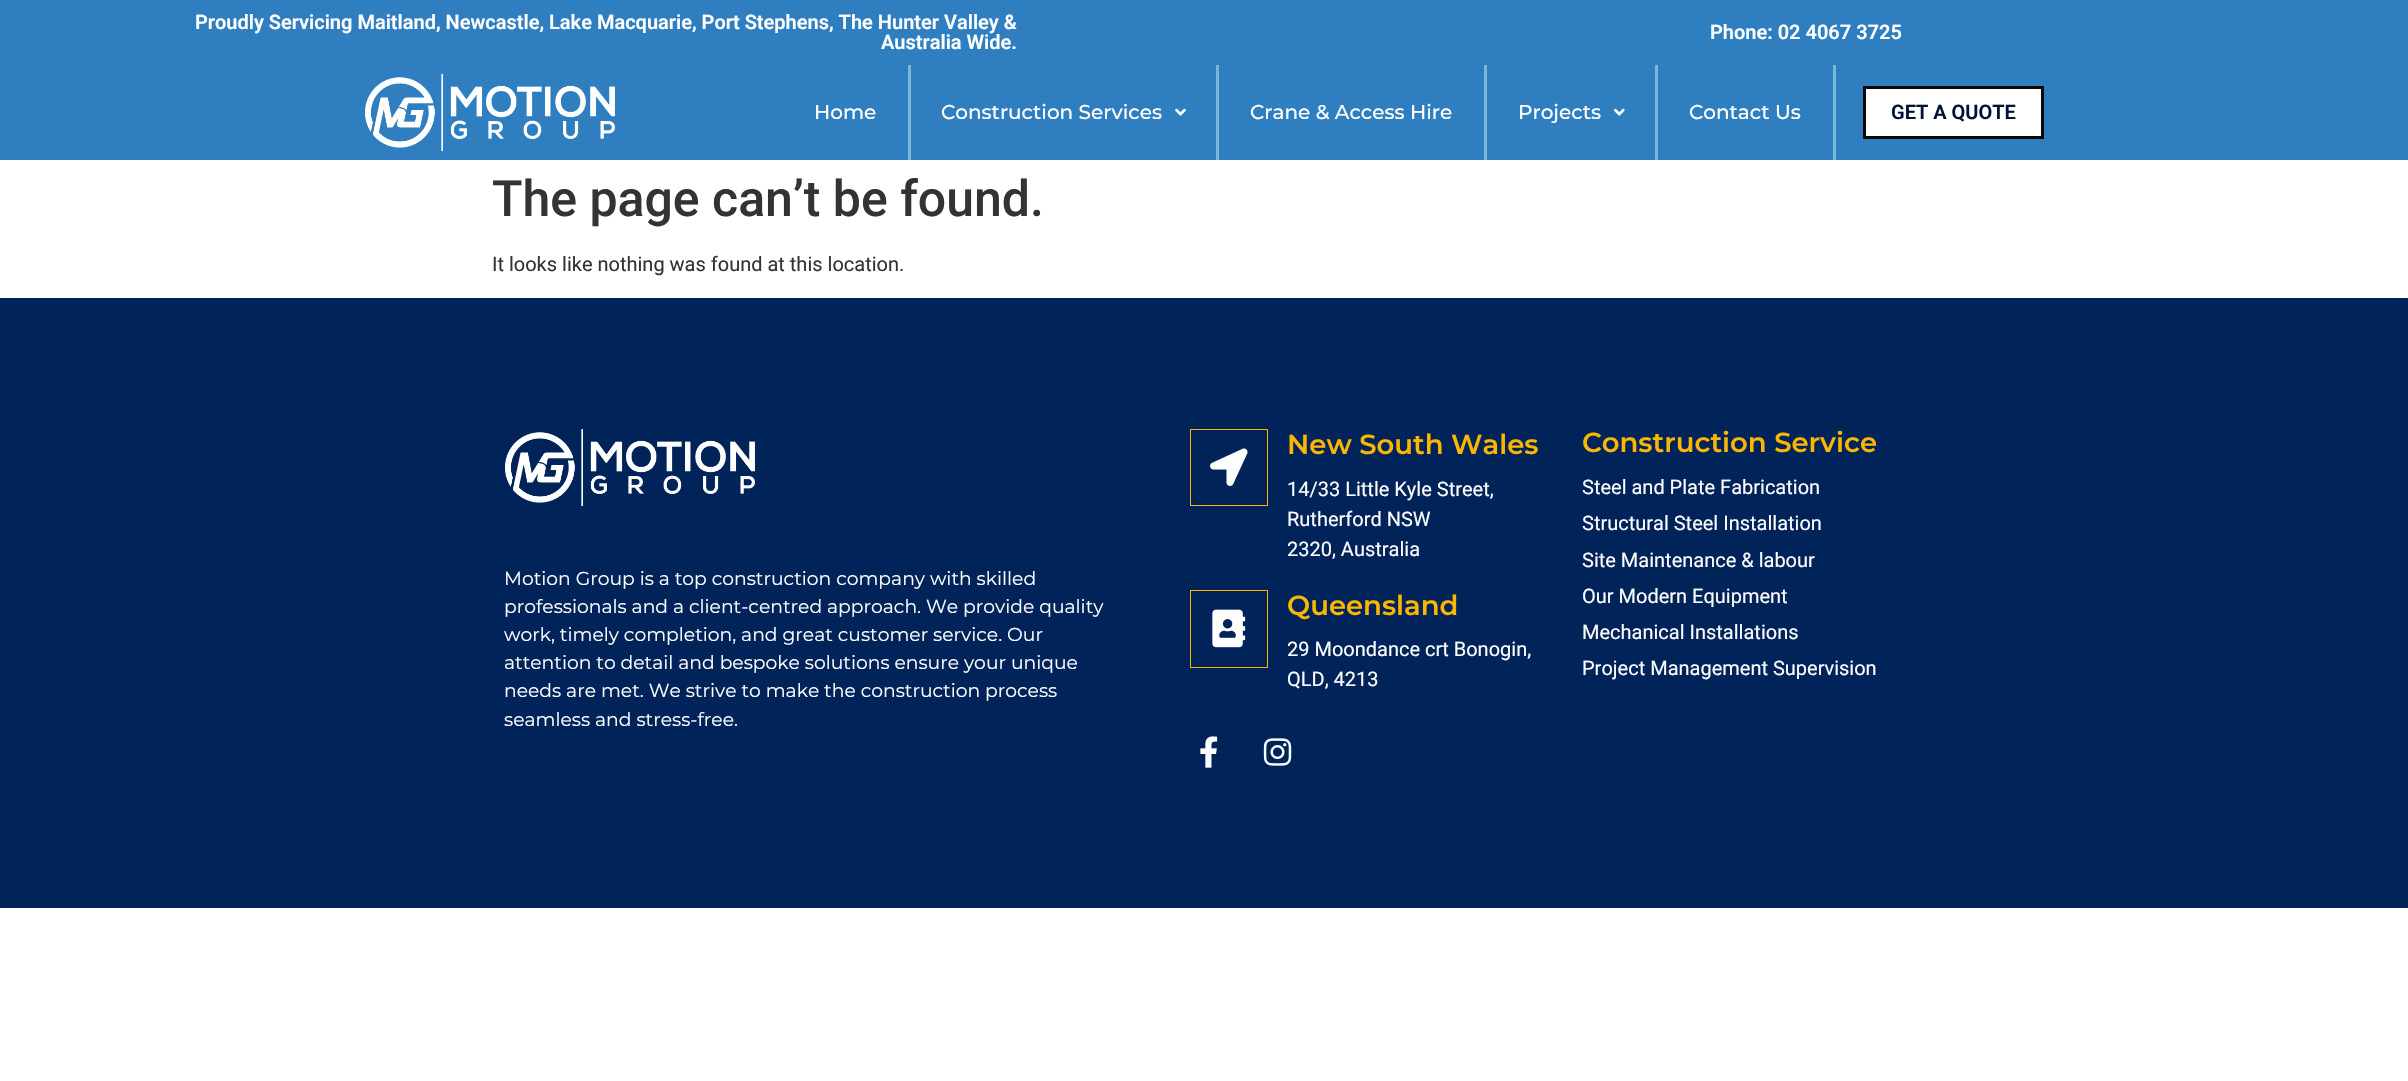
void draw(SkCanvas* canvas) {
	SkPaint fill;
	fill.setAntiAlias(true);
	auto makeFont = [&](const char* family, int weight, float size, bool italic = false) {
		SkFontStyle style(weight, SkFontStyle::kNormal_Width,
			italic ? SkFontStyle::kItalic_Slant : SkFontStyle::kUpright_Slant);
		SkFont result(fontMgr->matchFamilyStyle(family, style), size);
		result.setSubpixel(true);
		return result;
	};
	auto text = [&](const char* s, float x, float y, const SkFont& font) {
		canvas->drawString(s, x, y, font, fill);
	};
	auto box = [&](float l, float t, float r, float b) {
		canvas->drawRect(SkRect::MakeLTRB(l, t, r, b), fill);
	};
	auto picture = [&](const char* path, float l, float t, float r, float b) {
		auto image = SkImages::DeferredFromEncodedData(SkData::MakeFromFileName(path));
		canvas->drawImageRect(image, SkRect::MakeLTRB(l, t, r, b), SkSamplingOptions());
	};
	canvas->clear(0xFFFFFFFF);
	fill.setColor(0xFF2F7EC0);
	box(0, 0, 2408, 160);
	picture("image0.png", 365, 74, 615, 151);
	fill.setColor(0xFF77B7DA);
	box(908, 65, 911, 160);
	box(1216, 65, 1219, 160);
	picture("image1.png", 1175, 108, 1186, 116);
	box(1484, 65, 1487, 160);
	box(1655, 65, 1658, 160);
	picture("image2.png", 1613, 108, 1625, 116);
	box(1833, 65, 1836, 160);
	fill.setColor(0xFFFFFFFF);
	canvas->drawRect(SkRect::MakeLTRB(1864.5f, 87.5f, 2042.5f, 137.5f), fill);
	fill.setStyle(SkPaint::kStroke_Style);
	fill.setStrokeWidth(3);
	fill.setColor(0xFF080707);
	canvas->drawRect(SkRect::MakeLTRB(1864.5f, 87.5f, 2042.5f, 137.5f), fill);
	fill.setStyle(SkPaint::kFill_Style);
	fill.setColor(0xFF002359);
	box(0, 298, 2408, 908);
	picture("image3.png", 505, 429, 755, 506);
	fill.setStyle(SkPaint::kStroke_Style);
	fill.setStrokeWidth(1);
	fill.setColor(0xFFFBB601);
	canvas->drawRect(SkRect::MakeLTRB(1190.5f, 429.5f, 1267.5f, 505.5f), fill);
	picture("image4.png", 1210, 448, 1248, 486);
	canvas->drawRect(SkRect::MakeLTRB(1190.5f, 590.5f, 1267.5f, 667.5f), fill);
	picture("image5.png", 1212, 609, 1246, 648);
	picture("image6.png", 1200, 736, 1218, 768);
	picture("image7.png", 1263, 738, 1292, 766);
	auto font1 = makeFont("Roboto", 600, 20);
	fill.setStyle(SkPaint::kFill_Style);
	fill.setColor(0xFFFFFFFF);
	text("Proudly Servicing Maitland, Newcastle, Lake Macquarie, Port Stephens, The Hunter Valley &", 195, 29, font1);
	text("Australia Wide.", 881, 49, font1);
	text("Phone: 02 4067 3725", 1710, 39, font1);
	auto font2 = makeFont("Montserrat", 500, 20);
	text("Home", 814, 119, font2);
	text("Construction Services", 941, 119, font2);
	text("Crane & Access Hire", 1250, 119, font2);
	text("Projects", 1518, 119, font2);
	text("Contact Us", 1689, 119, font2);
	fill.setColor(0xFF011039);
	text("GET A QUOTE", 1891, 119, font1);
	auto font3 = makeFont("Roboto", 500, 50);
	fill.setColor(0xFF333333);
	text("The page can’t be found.", 492, 216, font3);
	auto font4 = makeFont("Roboto", 400, 20);
	text("It looks like nothing was found at this location.", 492, 271, font4);
	auto font5 = makeFont("Montserrat", 400, 18.75f);
	fill.setColor(0xFFFFFFFF);
	text("Motion Group is a top construction company with skilled", 504, 585, font5);
	text("professionals and a client-centred approach. We provide quality", 504, 613, font5);
	text("work, timely completion, and great customer service. Our", 504, 641, font5);
	text("attention to detail and bespoke solutions ensure your unique", 504, 669, font5);
	text("needs are met. We strive to make the construction process", 504, 697, font5);
	text("seamless and stress-free.", 504, 726, font5);
	auto font6 = makeFont("Montserrat", 600, 27.5f);
	fill.setColor(0xFFFBB601);
	text("New South Wales", 1287, 454, font6);
	fill.setColor(0xFFFFFFFF);
	text("14/33 Little Kyle Street,", 1287, 496, font4);
	text("Rutherford NSW", 1287, 526, font4);
	text("2320, Australia", 1287, 556, font4);
	fill.setColor(0xFFFBB601);
	text("Queensland", 1287, 615, font6);
	fill.setColor(0xFFFFFFFF);
	text("29 Moondance crt Bonogin,", 1287, 656, font4);
	text("QLD, 4213", 1287, 686, font4);
	fill.setColor(0xFFFBB601);
	text("Construction Service", 1582, 452, font6);
	fill.setColor(0xFFFFFFFF);
	text("Steel and Plate Fabrication", 1582, 494, font4);
	text("Structural Steel Installation", 1582, 530, font4);
	text("Site Maintenance & labour", 1582, 567, font4);
	text("Our Modern Equipment", 1582, 603, font4);
	text("Mechanical Installations", 1582, 639, font4);
	text("Project Management Supervision", 1582, 675, font4);
}
